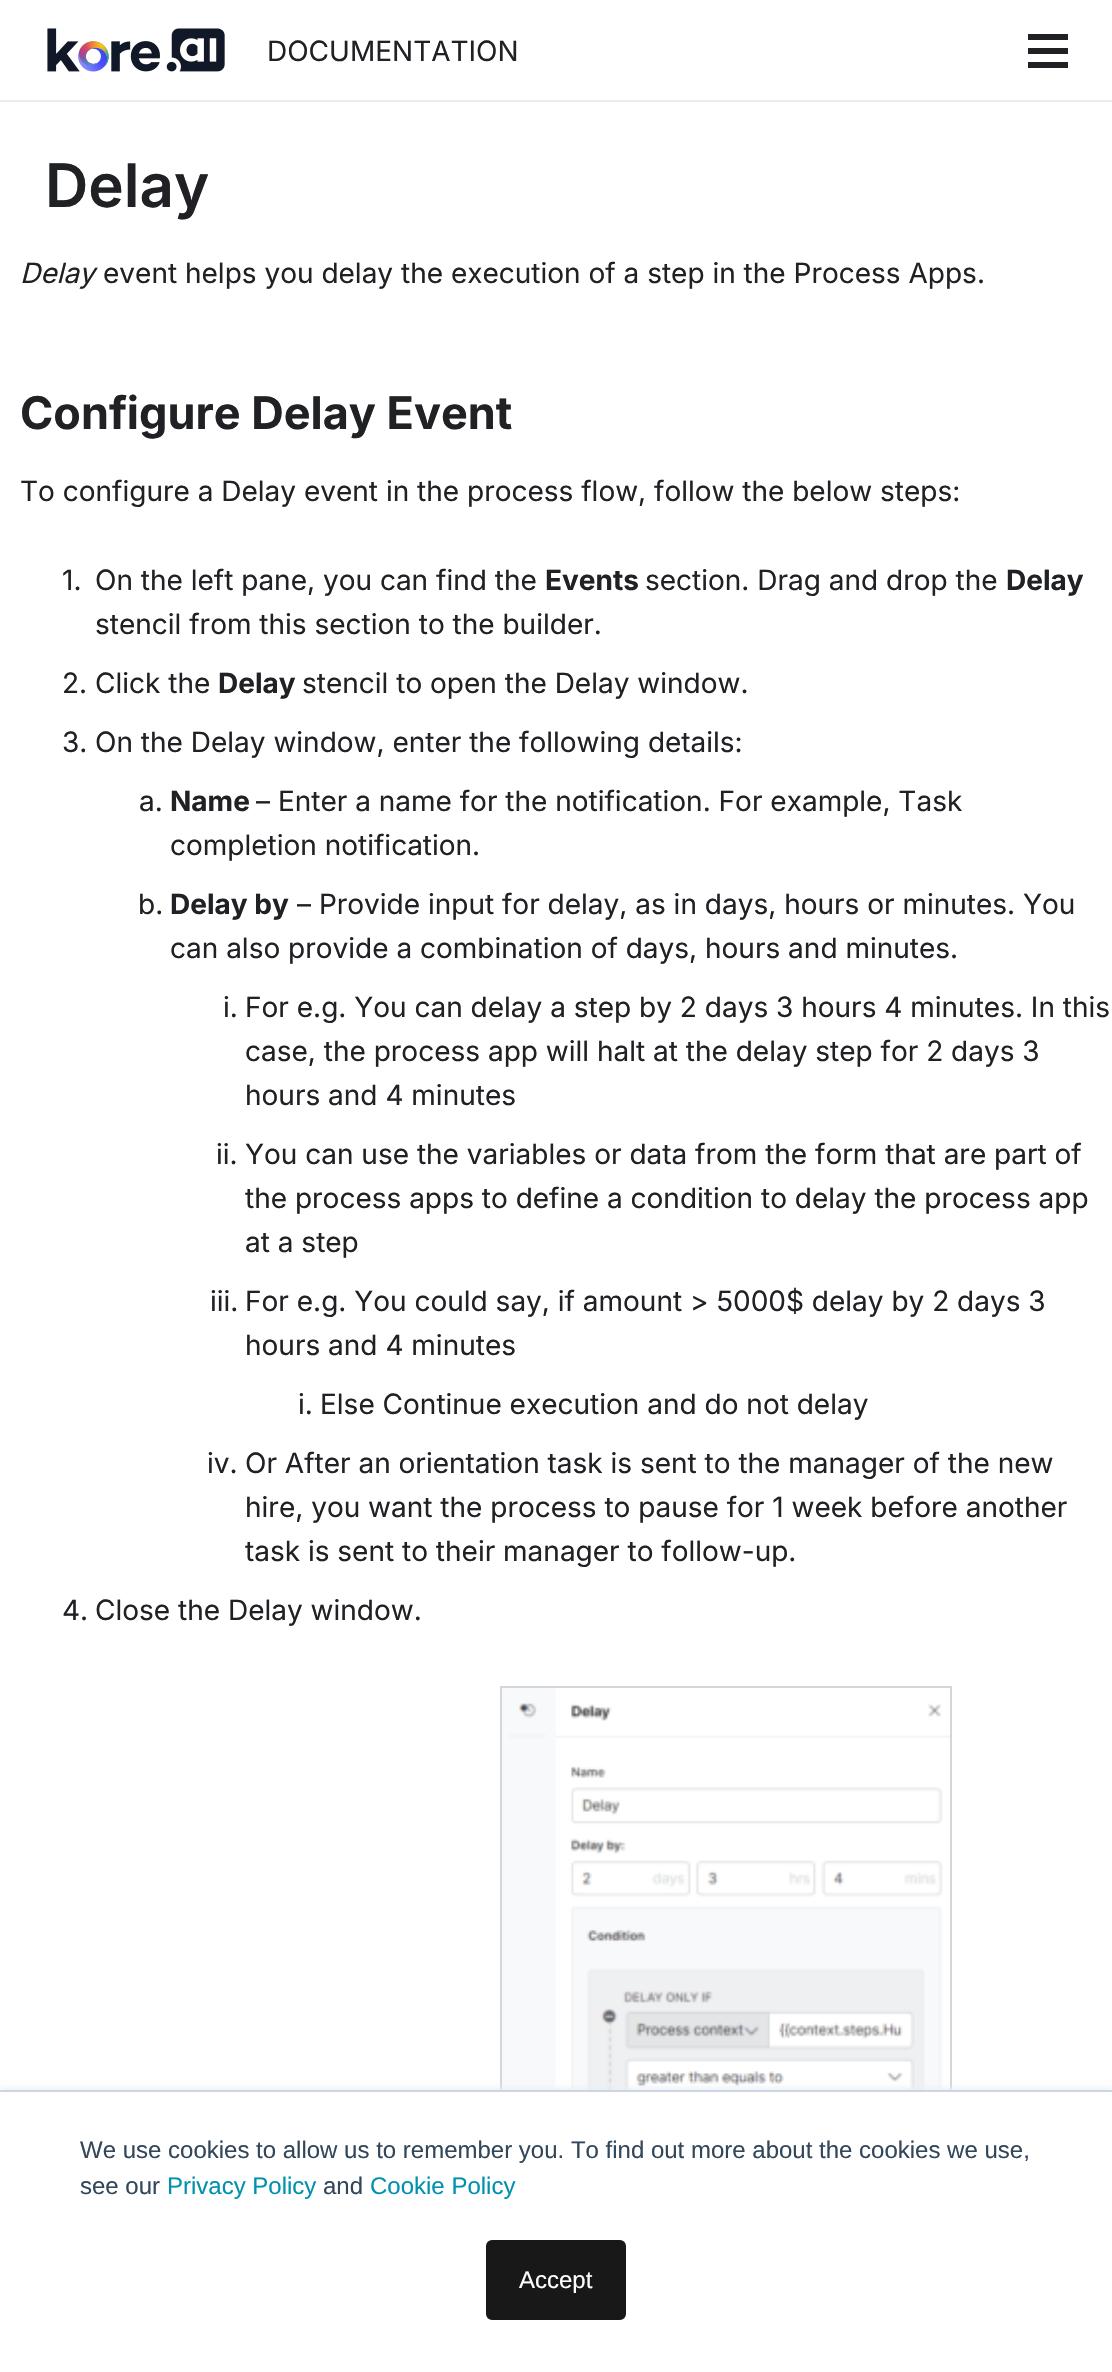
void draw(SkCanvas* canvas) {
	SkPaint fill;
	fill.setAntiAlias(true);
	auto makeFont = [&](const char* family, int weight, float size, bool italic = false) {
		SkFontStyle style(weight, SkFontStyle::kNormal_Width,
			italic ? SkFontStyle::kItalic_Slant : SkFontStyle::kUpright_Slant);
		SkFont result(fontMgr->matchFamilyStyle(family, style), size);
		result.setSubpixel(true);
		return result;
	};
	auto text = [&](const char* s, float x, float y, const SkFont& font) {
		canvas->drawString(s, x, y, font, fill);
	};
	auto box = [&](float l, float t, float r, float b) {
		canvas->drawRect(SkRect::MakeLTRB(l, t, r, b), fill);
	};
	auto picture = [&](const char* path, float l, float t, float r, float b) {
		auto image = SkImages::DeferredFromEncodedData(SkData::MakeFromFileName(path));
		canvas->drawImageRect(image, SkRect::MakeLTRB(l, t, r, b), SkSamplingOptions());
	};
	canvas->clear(0xFFFFFFFF);
	fill.setColor(0xFFEBEBEB);
	box(0, 100, 1112, 102);
	picture("image0.png", 47, 28, 225, 72);
	fill.setColor(0xFF202124);
	box(1028, 48, 1068, 54);
	box(1028, 34, 1068, 40);
	box(1028, 62, 1068, 68);
	fill.setStyle(SkPaint::kStroke_Style);
	fill.setStrokeWidth(2);
	fill.setColor(0xFFD4D6DB);
	canvas->drawRect(SkRect::MakeLTRB(501, 1687, 951, 2285), fill);
	picture("image1.png", 502, 1688, 950, 2090);
	fill.setStyle(SkPaint::kFill_Style);
	fill.setColor(0xFFEAF0F6);
	fill.setMaskFilter(SkMaskFilter::MakeBlur(kNormal_SkBlurStyle, 3));
	canvas->drawRect(SkRect::MakeLTRB(0, 2088, 1112, 2370), fill);
	fill.setMaskFilter(nullptr);
	fill.setColor(0xFFFFFFFF);
	box(0, 2092, 1112, 2372);
	fill.setColor(0xFFCBD6E2);
	box(0, 2090, 1112, 2092);
	fill.setColor(0xFF181818);
	canvas->drawRoundRect(SkRect::MakeLTRB(487, 2241, 625, 2319), 5, 5, fill);
	fill.setStyle(SkPaint::kStroke_Style);
	canvas->drawRoundRect(SkRect::MakeLTRB(487, 2241, 625, 2319), 5, 5, fill);
	auto font1 = makeFont("Inter", 400, 28);
	fill.setStyle(SkPaint::kFill_Style);
	fill.setColor(0xFF202124);
	text("DOCUMENTATION", 267, 61, font1);
	auto font2 = makeFont("Inter", 600, 60);
	text("Delay", 45, 207, font2);
	auto font3 = makeFont("Inter", 400, 28, true);
	text("Delay", 20, 283, font3);
	text("event helps you delay the execution of a step in the Process Apps.", 103, 283, font1);
	auto font4 = makeFont("Inter", 700, 45);
	text("Configure Delay Event", 20, 429, font4);
	text("To configure a Delay event in the process flow, follow the below steps:", 20, 501, font1);
	text("1.", 62, 590, font1);
	text("On the left pane, you can find the", 95, 590, font1);
	auto font5 = makeFont("Inter", 700, 28);
	text("Events", 545, 590, font5);
	text("section. Drag and drop the", 645, 590, font1);
	text("Delay", 1006, 590, font5);
	text("stencil from this section to the builder.", 95, 634, font1);
	text("2.", 62, 693, font1);
	text("Click the", 95, 693, font1);
	text("Delay", 218, 693, font5);
	text("stencil to open the Delay window.", 302, 693, font1);
	text("3.", 62, 752, font1);
	text("On the Delay window, enter the following details:", 95, 752, font1);
	text("a.", 139, 811, font1);
	text("Name", 170, 811, font5);
	text("– Enter a name for the notification. For example, Task", 256, 811, font1);
	text("completion notification.", 170, 855, font1);
	text("b.", 138, 914, font1);
	text("Delay by", 170, 914, font5);
	text("– Provide input for delay, as in days, hours or minutes. You", 297, 914, font1);
	text("can also provide a combination of days, hours and minutes.", 170, 958, font1);
	text("i.", 223, 1017, font1);
	text("For e.g. You can delay a step by 2 days 3 hours 4 minutes. In this", 245, 1017, font1);
	text("case, the process app will halt at the delay step for 2 days 3", 245, 1061, font1);
	text("hours and 4 minutes", 245, 1105, font1);
	text("ii.", 216, 1164, font1);
	text("You can use the variables or data from the form that are part of", 245, 1164, font1);
	text("the process apps to define a condition to delay the process app", 245, 1208, font1);
	text("at a step", 245, 1252, font1);
	text("iii.", 210, 1311, font1);
	text("For e.g. You could say, if amount > 5000$ delay by 2 days 3", 245, 1311, font1);
	text("hours and 4 minutes", 245, 1355, font1);
	text("i.", 298, 1414, font1);
	text("Else Continue execution and do not delay", 320, 1414, font1);
	text("iv.", 207, 1473, font1);
	text("Or After an orientation task is sent to the manager of the new", 245, 1473, font1);
	text("hire, you want the process to pause for 1 week before another", 245, 1517, font1);
	text("task is sent to their manager to follow-up.", 245, 1561, font1);
	text("4.", 62, 1620, font1);
	text("Close the Delay window.", 95, 1620, font1);
	auto font6 = makeFont("Liberation Sans", 400, 24);
	fill.setColor(0xFF33475B);
	text("We use cookies to allow us to remember you. To find out more about the cookies we use,", 80, 2158, font6);
	text("see our", 80, 2194, font6);
	fill.setColor(0xFF0091AE);
	text("Privacy Policy", 167, 2194, font6);
	fill.setColor(0xFF33475B);
	text("and", 323, 2194, font6);
	fill.setColor(0xFF0091AE);
	text("Cookie Policy", 370, 2194, font6);
	fill.setColor(0xFFFFFFFF);
	text("Accept", 519, 2288, font6);
}
